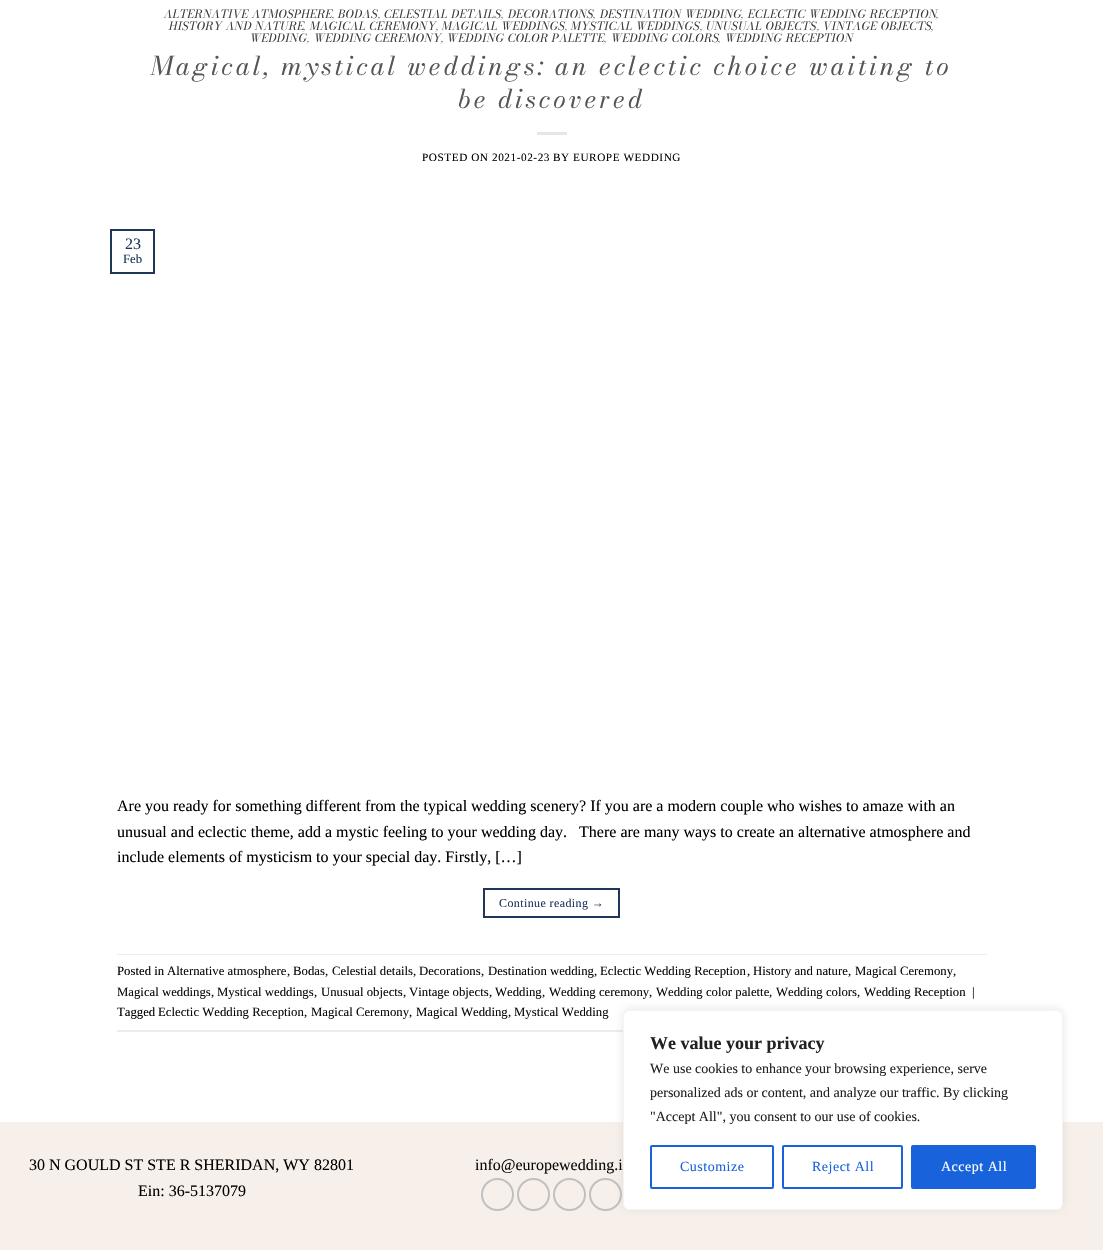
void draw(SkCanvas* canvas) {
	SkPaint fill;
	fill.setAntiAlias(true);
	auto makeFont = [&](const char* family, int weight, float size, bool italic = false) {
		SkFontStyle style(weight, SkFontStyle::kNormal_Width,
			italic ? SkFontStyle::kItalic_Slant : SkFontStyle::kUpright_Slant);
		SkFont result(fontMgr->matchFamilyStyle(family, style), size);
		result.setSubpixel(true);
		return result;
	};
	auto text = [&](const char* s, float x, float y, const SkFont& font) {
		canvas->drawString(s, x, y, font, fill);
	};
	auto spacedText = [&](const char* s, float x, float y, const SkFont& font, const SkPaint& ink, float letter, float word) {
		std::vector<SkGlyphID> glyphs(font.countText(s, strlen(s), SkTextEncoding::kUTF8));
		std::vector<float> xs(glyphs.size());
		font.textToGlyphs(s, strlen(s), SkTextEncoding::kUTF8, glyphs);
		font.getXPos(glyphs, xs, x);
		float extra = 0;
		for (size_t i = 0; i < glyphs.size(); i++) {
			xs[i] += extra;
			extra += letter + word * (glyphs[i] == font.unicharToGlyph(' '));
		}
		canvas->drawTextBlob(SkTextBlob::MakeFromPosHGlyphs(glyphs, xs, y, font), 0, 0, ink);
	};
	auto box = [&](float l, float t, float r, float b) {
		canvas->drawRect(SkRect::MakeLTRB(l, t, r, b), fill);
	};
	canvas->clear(0xFFFFFFFF);
	fill.setColor(0xFFE6E6E6);
	box(537, 132, 567, 135);
	fill.setStyle(SkPaint::kStroke_Style);
	fill.setStrokeWidth(2);
	fill.setColor(0xFF1F355A);
	canvas->drawRect(SkRect::MakeLTRB(111, 230, 154, 273), fill);
	canvas->drawRect(SkRect::MakeLTRB(484, 889, 619, 917), fill);
	fill.setStyle(SkPaint::kFill_Style);
	fill.setColor(0xFFECECEC);
	box(117, 954, 987, 955);
	box(117, 1030, 623, 1032);
	fill.setColor(0xFFF7F0EA);
	box(0, 1122, 1103, 1250);
	fill.setStyle(SkPaint::kStroke_Style);
	fill.setColor(0xFFC0C0C0);
	canvas->drawCircle(497.5f, 1194.5f, 15.5f, fill);
	canvas->drawCircle(533.5f, 1194.5f, 15.5f, fill);
	canvas->drawCircle(569.5f, 1194.5f, 15.5f, fill);
	canvas->drawCircle(605.5f, 1194.5f, 15.5f, fill);
	fill.setStyle(SkPaint::kFill_Style);
	fill.setColor(0x4DACABAB);
	fill.setMaskFilter(SkMaskFilter::MakeBlur(kNormal_SkBlurStyle, 5));
	canvas->drawRoundRect(SkRect::MakeLTRB(623, 1009, 1063, 1209), 6, 6, fill);
	fill.setMaskFilter(nullptr);
	fill.setColor(0xFFFFFFFF);
	canvas->drawRoundRect(SkRect::MakeLTRB(623.5f, 1010.5f, 1062.5f, 1209.5f), 5.5f, 5.5f, fill);
	fill.setStyle(SkPaint::kStroke_Style);
	fill.setStrokeWidth(1);
	fill.setColor(0xFFF4F4F4);
	canvas->drawRoundRect(SkRect::MakeLTRB(623.5f, 1010.5f, 1062.5f, 1209.5f), 5.5f, 5.5f, fill);
	fill.setStrokeWidth(2);
	fill.setColor(0xFF1863DC);
	canvas->drawRoundRect(SkRect::MakeLTRB(651, 1146, 773, 1188), 1, 1, fill);
	canvas->drawRoundRect(SkRect::MakeLTRB(783, 1146, 902, 1188), 1, 1, fill);
	fill.setStyle(SkPaint::kFill_Style);
	canvas->drawRoundRect(SkRect::MakeLTRB(912, 1146, 1035, 1188), 1, 1, fill);
	fill.setStyle(SkPaint::kStroke_Style);
	canvas->drawRoundRect(SkRect::MakeLTRB(912, 1146, 1035, 1188), 1, 1, fill);
	auto font1 = makeFont("Bodoni Moda", 400, 11.25f, true);
	fill.setStyle(SkPaint::kFill_Style);
	fill.setColor(0xFF3B3B3B);
	spacedText("ALTERNATIVE ATMOSPHERE", 164, 18, font1, fill, 0.55f, 0);
	spacedText("BODAS", 338, 18, font1, fill, 0.55f, 0);
	spacedText("CELESTIAL DETAILS", 384, 18, font1, fill, 0.55f, 0);
	spacedText("DECORATIONS", 508, 18, font1, fill, 0.55f, 0);
	spacedText("DESTINATION WEDDING", 600, 18, font1, fill, 0.55f, 0);
	spacedText("ECLECTIC WEDDING RECEPTION", 748, 18, font1, fill, 0.55f, 0);
	fill.setColor(0xFF777777);
	spacedText(",", 332, 18, font1, fill, 0.55f, 0);
	spacedText(",", 378, 18, font1, fill, 0.55f, 0);
	spacedText(",", 501, 18, font1, fill, 0.55f, 0);
	spacedText(",", 593, 18, font1, fill, 0.55f, 0);
	spacedText(",", 741, 18, font1, fill, 0.55f, 0);
	spacedText(",", 936, 18, font1, fill, 0.55f, 0);
	fill.setColor(0xFF3B3B3B);
	spacedText("HISTORY AND NATURE", 169, 30, font1, fill, 0.55f, 0);
	fill.setColor(0xFF777777);
	spacedText(",", 303, 30, font1, fill, 0.55f, 0);
	fill.setColor(0xFF3B3B3B);
	spacedText("MAGICAL CEREMONY", 310, 30, font1, fill, 0.55f, 0);
	spacedText("MAGICAL WEDDINGS", 442, 30, font1, fill, 0.55f, 0);
	spacedText("MYSTICAL WEDDINGS", 571, 30, font1, fill, 0.55f, 0);
	spacedText("UNUSUAL OBJECTS", 706, 30, font1, fill, 0.55f, 0);
	spacedText("VINTAGE OBJECTS", 823, 30, font1, fill, 0.55f, 0);
	fill.setColor(0xFF777777);
	spacedText(",", 436, 30, font1, fill, 0.55f, 0);
	spacedText(",", 565, 30, font1, fill, 0.55f, 0);
	spacedText(",", 700, 30, font1, fill, 0.55f, 0);
	spacedText(",", 817, 30, font1, fill, 0.55f, 0);
	spacedText(",", 931, 30, font1, fill, 0.55f, 0);
	fill.setColor(0xFF3B3B3B);
	spacedText("WEDDING", 250, 42, font1, fill, 0.55f, 0);
	fill.setColor(0xFF777777);
	spacedText(",", 307, 42, font1, fill, 0.55f, 0);
	fill.setColor(0xFF3B3B3B);
	spacedText("WEDDING CEREMONY", 314, 42, font1, fill, 0.55f, 0);
	spacedText("WEDDING COLOR PALETTE", 447, 42, font1, fill, 0.55f, 0);
	spacedText("WEDDING COLORS", 611, 42, font1, fill, 0.55f, 0);
	spacedText("WEDDING RECEPTION", 725, 42, font1, fill, 0.55f, 0);
	fill.setColor(0xFF777777);
	spacedText(",", 441, 42, font1, fill, 0.55f, 0);
	spacedText(",", 604, 42, font1, fill, 0.55f, 0);
	spacedText(",", 718, 42, font1, fill, 0.55f, 0);
	auto font2 = makeFont("Bodoni Moda", 400, 25.6f, true);
	fill.setColor(0xFF555555);
	spacedText("Magical, mystical weddings: an eclectic choice waiting to", 151, 75, font2, fill, 3, 0);
	spacedText("be discovered", 458, 108, font2, fill, 3, 0);
	auto font3 = makeFont("Liberation Serif", 400, 11.25f);
	fill.setColor(0xFF000000);
	spacedText("POSTED ON", 422, 161, font3, fill, 0.55f, 0);
	fill.setColor(0xFF0A0A0A);
	spacedText("2021-02-23", 492, 161, font3, fill, 0.55f, 0);
	fill.setColor(0xFF000000);
	spacedText("BY", 553, 161, font3, fill, 0.55f, 0);
	fill.setColor(0xFF0A0A0A);
	spacedText("EUROPE WEDDING", 573, 161, font3, fill, 0.55f, 0);
	auto font4 = makeFont("Liberation Serif", 400, 16);
	fill.setColor(0xFF1F355A);
	text("23", 125, 249, font4);
	auto font5 = makeFont("Liberation Serif", 400, 12.75f);
	text("Feb", 123, 263, font5);
	fill.setColor(0xFF000000);
	text("Are you ready for something different from the typical wedding scenery? If you are a modern couple who wishes to amaze with an", 117, 811, font4);
	text("unusual and eclectic theme, add a mystic feeling to your wedding day.   There are many ways to create an alternative atmosphere and", 117, 837, font4);
	text("include elements of mysticism to your special day. Firstly, […]", 117, 862, font4);
	auto font6 = makeFont("Liberation Serif", 400, 12);
	fill.setColor(0xFF1F355A);
	spacedText("Continue reading →", 499, 907, font6, fill, 0.4f, 0);
	fill.setColor(0xFF000000);
	text("Posted in", 117, 975, font5);
	fill.setColor(0xFF0A0A0A);
	text("Alternative atmosphere", 167, 975, font5);
	fill.setColor(0xFF000000);
	text(",", 287, 975, font5);
	fill.setColor(0xFF0A0A0A);
	text("Bodas", 293, 975, font5);
	fill.setColor(0xFF000000);
	text(",", 325, 975, font5);
	fill.setColor(0xFF0A0A0A);
	text("Celestial details", 332, 975, font5);
	fill.setColor(0xFF000000);
	text(",", 413, 975, font5);
	fill.setColor(0xFF0A0A0A);
	text("Decorations", 419, 975, font5);
	fill.setColor(0xFF000000);
	text(",", 481, 975, font5);
	fill.setColor(0xFF0A0A0A);
	text("Destination wedding", 488, 975, font5);
	fill.setColor(0xFF000000);
	text(",", 594, 975, font5);
	fill.setColor(0xFF0A0A0A);
	text("Eclectic Wedding Reception", 600, 975, font5);
	fill.setColor(0xFF000000);
	text(",", 747, 975, font5);
	fill.setColor(0xFF0A0A0A);
	text("History and nature", 753, 975, font5);
	fill.setColor(0xFF000000);
	text(",", 848, 975, font5);
	fill.setColor(0xFF0A0A0A);
	text("Magical Ceremony", 855, 975, font5);
	fill.setColor(0xFF000000);
	text(",", 953, 975, font5);
	fill.setColor(0xFF0A0A0A);
	text("Magical weddings", 117, 996, font5);
	fill.setColor(0xFF000000);
	text(",", 211, 996, font5);
	fill.setColor(0xFF0A0A0A);
	text("Mystical weddings", 217, 996, font5);
	fill.setColor(0xFF000000);
	text(",", 314, 996, font5);
	fill.setColor(0xFF0A0A0A);
	text("Unusual objects", 321, 996, font5);
	fill.setColor(0xFF000000);
	text(",", 403, 996, font5);
	fill.setColor(0xFF0A0A0A);
	text("Vintage objects", 409, 996, font5);
	fill.setColor(0xFF000000);
	text(",", 489, 996, font5);
	fill.setColor(0xFF0A0A0A);
	text("Wedding", 495, 996, font5);
	fill.setColor(0xFF000000);
	text(",", 542, 996, font5);
	fill.setColor(0xFF0A0A0A);
	text("Wedding ceremony", 549, 996, font5);
	fill.setColor(0xFF000000);
	text(",", 649, 996, font5);
	fill.setColor(0xFF0A0A0A);
	text("Wedding color palette", 656, 996, font5);
	fill.setColor(0xFF000000);
	text(",", 769, 996, font5);
	fill.setColor(0xFF0A0A0A);
	text("Wedding colors", 776, 996, font5);
	fill.setColor(0xFF000000);
	text(",", 857, 996, font5);
	fill.setColor(0xFF0A0A0A);
	text("Wedding Reception", 864, 996, font5);
	fill.setColor(0xFF000000);
	text("|", 972, 996, font5);
	text("Tagged", 117, 1016, font5);
	fill.setColor(0xFF0A0A0A);
	text("Eclectic Wedding Reception", 158, 1016, font5);
	fill.setColor(0xFF000000);
	text(",", 304, 1016, font5);
	fill.setColor(0xFF0A0A0A);
	text("Magical Ceremony", 311, 1016, font5);
	fill.setColor(0xFF000000);
	text(",", 409, 1016, font5);
	fill.setColor(0xFF0A0A0A);
	text("Magical Wedding", 416, 1016, font5);
	fill.setColor(0xFF000000);
	text(",", 508, 1016, font5);
	fill.setColor(0xFF0A0A0A);
	text("Mystical Wedding", 514, 1016, font5);
	fill.setColor(0xFF000000);
	text("30 N GOULD ST STE R SHERIDAN, WY 82801", 29, 1170, font4);
	text("Ein: 36-5137079", 138, 1196, font4);
	fill.setColor(0xFF0A0A0A);
	text("info@europewedding.i", 475, 1170, font4);
	auto font7 = makeFont("Liberation Serif", 700, 18);
	fill.setColor(0xFF212121);
	text("We value your privacy", 650, 1049, font7);
	auto font8 = makeFont("Liberation Serif", 400, 14);
	text("We use cookies to enhance your browsing experience, serve", 650, 1073, font8);
	text("personalized ads or content, and analyze our traffic. By clicking", 650, 1097, font8);
	text("\"Accept All\", you consent to our use of cookies.", 650, 1121, font8);
	fill.setColor(0xFF1863DC);
	spacedText("Customize", 680, 1171, font8, fill, 0.5f, 0);
	spacedText("Reject All", 812, 1171, font8, fill, 0.5f, 0);
	fill.setColor(0xFFFFFFFF);
	spacedText("Accept All", 941, 1171, font8, fill, 0.5f, 0);
}
